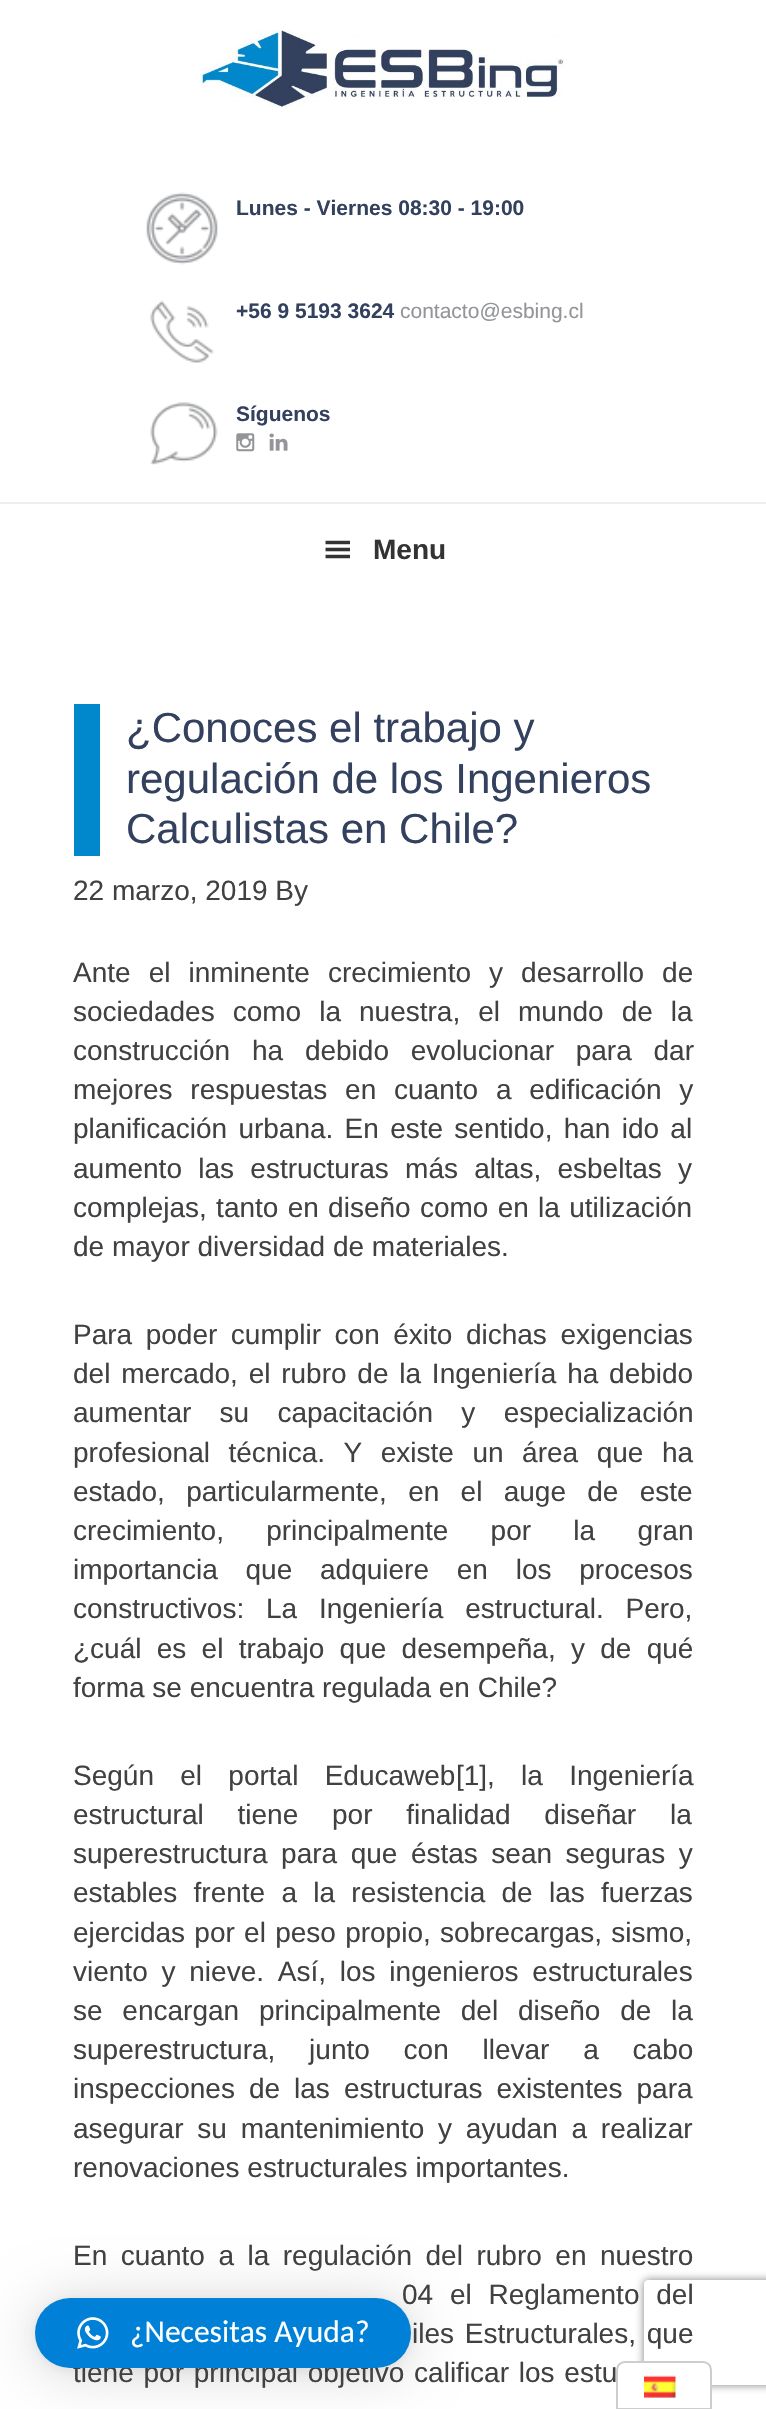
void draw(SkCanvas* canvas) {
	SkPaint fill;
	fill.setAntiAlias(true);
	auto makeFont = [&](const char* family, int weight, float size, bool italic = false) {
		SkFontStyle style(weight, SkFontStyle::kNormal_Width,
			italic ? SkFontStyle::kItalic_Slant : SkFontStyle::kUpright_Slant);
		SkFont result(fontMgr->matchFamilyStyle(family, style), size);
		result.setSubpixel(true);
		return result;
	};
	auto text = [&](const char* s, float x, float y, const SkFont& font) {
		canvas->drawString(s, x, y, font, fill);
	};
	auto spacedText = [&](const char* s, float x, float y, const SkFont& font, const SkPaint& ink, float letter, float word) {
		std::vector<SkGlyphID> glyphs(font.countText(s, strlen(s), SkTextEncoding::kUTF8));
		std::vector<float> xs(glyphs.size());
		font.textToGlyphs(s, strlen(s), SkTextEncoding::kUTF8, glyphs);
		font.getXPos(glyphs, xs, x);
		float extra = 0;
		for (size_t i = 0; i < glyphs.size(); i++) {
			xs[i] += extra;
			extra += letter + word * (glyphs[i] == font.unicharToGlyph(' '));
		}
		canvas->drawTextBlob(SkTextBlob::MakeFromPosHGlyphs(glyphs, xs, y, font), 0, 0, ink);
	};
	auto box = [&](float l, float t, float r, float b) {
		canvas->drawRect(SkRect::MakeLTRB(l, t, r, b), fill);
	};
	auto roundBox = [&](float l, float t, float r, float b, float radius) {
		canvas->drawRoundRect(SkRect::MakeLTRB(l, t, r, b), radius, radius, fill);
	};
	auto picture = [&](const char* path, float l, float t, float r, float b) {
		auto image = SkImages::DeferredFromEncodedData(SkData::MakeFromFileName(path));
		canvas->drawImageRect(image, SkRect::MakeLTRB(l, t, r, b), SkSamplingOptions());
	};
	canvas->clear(0xFFFFFFFF);
	picture("image0.png", 201, 29, 565, 107);
	picture("image1.png", 146, 192, 218, 265);
	picture("image2.png", 150, 300, 214, 363);
	picture("image3.png", 150, 402, 218, 465);
	picture("image4.png", 236, 433, 255, 452);
	picture("image5.png", 269, 433, 288, 451);
	fill.setColor(0xFFEEEEEE);
	box(0, 502, 766, 504);
	picture("image6.png", 325, 540, 350, 559);
	fill.setColor(0xFF0188CC);
	box(74, 704, 100, 856);
	canvas->save();
	canvas->clipPath(SkPathBuilder(SkPathFillType::kEvenOdd).moveTo(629, 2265).lineTo(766, 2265).lineTo(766, 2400).lineTo(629, 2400).close().moveTo(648, 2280).lineTo(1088, 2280).cubicTo(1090, 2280, 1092, 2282, 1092, 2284).lineTo(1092, 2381).cubicTo(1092, 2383, 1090, 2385, 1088, 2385).lineTo(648, 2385).cubicTo(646, 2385, 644, 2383, 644, 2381).lineTo(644, 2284).cubicTo(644, 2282, 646, 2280, 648, 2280).close().detach(), true);
	fill.setColor(0xFF808080);
	fill.setMaskFilter(SkMaskFilter::MakeBlur(kNormal_SkBlurStyle, 4.5f));
	canvas->drawRoundRect(SkRect::MakeLTRB(644, 2280, 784, 2385), 4, 4, fill);
	fill.setMaskFilter(nullptr);
	canvas->restore();
	fill.setColor(0x29000000);
	fill.setMaskFilter(SkMaskFilter::MakeBlur(kNormal_SkBlurStyle, 28));
	canvas->drawRoundRect(SkRect::MakeLTRB(35, 2301, 411, 2371), 35, 35, fill);
	fill.setMaskFilter(nullptr);
	fill.setColor(0x0F000000);
	fill.setMaskFilter(SkMaskFilter::MakeBlur(kNormal_SkBlurStyle, 5));
	canvas->drawRoundRect(SkRect::MakeLTRB(35, 2300, 411, 2370), 35, 35, fill);
	fill.setMaskFilter(nullptr);
	auto font1 = makeFont("Liberation Sans", 700, 21);
	fill.setColor(0xFF33415E);
	text("Lunes - Viernes 08:30 - 19:00", 236, 215, font1);
	text("+56 9 5193 3624", 236, 318, font1);
	auto font2 = makeFont("Liberation Sans", 400, 21);
	fill.setColor(0xFF939598);
	text("contacto@esbing.cl", 400, 318, font2);
	fill.setColor(0xFF33415E);
	text("Síguenos", 236, 421, font1);
	auto font3 = makeFont("Liberation Sans", 700, 28);
	fill.setColor(0xFF333333);
	text("Menu", 373, 559, font3);
	auto font4 = makeFont("Liberation Sans", 400, 42);
	fill.setColor(0xFF33415E);
	text("¿Conoces el trabajo y", 126, 742, font4);
	text("regulación de los Ingenieros", 126, 793, font4);
	text("Calculistas en Chile?", 126, 843, font4);
	auto font5 = makeFont("Liberation Sans", 400, 28);
	fill.setColor(0xFF414042);
	text("22 marzo, 2019 By", 73, 900, font5);
	spacedText("Ante el inminente crecimiento y desarrollo de", 73, 982, font5, fill, 0, 10.25f);
	spacedText("sociedades como la nuestra, el mundo de la", 73, 1021, font5, fill, 0, 10.25f);
	spacedText("construcción ha debido evolucionar para dar", 73, 1060, font5, fill, 0, 14);
	spacedText("mejores respuestas en cuanto a edificación y", 73, 1099, font5, fill, 0, 10);
	spacedText("planificación urbana. En este sentido, han ido al", 73, 1138, font5, fill, 0, 3.5f);
	spacedText("aumento las estructuras más altas, esbeltas y", 73, 1178, font5, fill, 0, 8.5f);
	spacedText("complejas, tanto en diseño como en la utilización", 73, 1217, font5, fill, 0, 1.5f);
	text("de mayor diversidad de materiales.", 73, 1256, font5);
	spacedText("Para poder cumplir con éxito dichas exigencias", 73, 1344, font5, fill, 0, 5.75f);
	spacedText("del mercado, el rubro de la Ingeniería ha debido", 73, 1383, font5, fill, 0, 3);
	spacedText("aumentar su capacitación y especialización", 73, 1422, font5, fill, 0, 20.5f);
	spacedText("profesional técnica. Y existe un área que ha", 73, 1462, font5, fill, 0, 10.75f);
	spacedText("estado, particularmente, en el auge de este", 73, 1501, font5, fill, 0, 13.5f);
	spacedText("crecimiento, principalmente por la gran", 73, 1540, font5, fill, 0, 34.5f);
	spacedText("importancia que adquiere en los procesos", 73, 1579, font5, fill, 0, 20);
	spacedText("constructivos: La Ingeniería estructural. Pero,", 73, 1618, font5, fill, 0, 14);
	spacedText("¿cuál es el trabajo que desempeña, y de qué", 73, 1658, font5, fill, 0, 7.5f);
	text("forma se encuentra regulada en Chile?", 73, 1697, font5);
	spacedText("Según el portal Educaweb", 73, 1785, font5, fill, 0, 18.5f);
	text("[1]", 456, 1785, font5);
	spacedText(", la Ingeniería", 487, 1785, font5, fill, 0, 18.5f);
	spacedText("estructural tiene por finalidad diseñar la", 73, 1824, font5, fill, 0, 26);
	spacedText("superestructura para que éstas sean seguras y", 73, 1863, font5, fill, 0, 5.75f);
	spacedText("estables frente a la resistencia de las fuerzas", 73, 1902, font5, fill, 0, 8.5f);
	spacedText("ejercidas por el peso propio, sobrecargas, sismo,", 73, 1942, font5, fill, 0, 1.5f);
	spacedText("viento y nieve. Así, los ingenieros estructurales", 73, 1981, font5, fill, 0, 6);
	spacedText("se encargan principalmente del diseño de la", 73, 2020, font5, fill, 0, 12);
	spacedText("superestructura, junto con llevar a cabo", 73, 2059, font5, fill, 0, 26);
	spacedText("inspecciones de las estructuras existentes para", 73, 2098, font5, fill, 0, 6.25f);
	spacedText("asegurar su mantenimiento y ayudan a realizar", 73, 2138, font5, fill, 0, 6);
	text("renovaciones estructurales importantes.", 73, 2177, font5);
	spacedText("En cuanto a la regulación del rubro en nuestro", 73, 2265, font5, fill, 0, 5.75f);
	spacedText("04 el Reglamento del", 402, 2304, font5, fill, 0, 9);
	spacedText("iles Estructurales, que", 412, 2343, font5, fill, 0, 3);
	spacedText("tiene por principal objetivo calificar los estu", 73, 2382, font5, fill, 0, 2);
	fill.setColor(0xFFFFFFFF);
	canvas->drawPath(SkPathBuilder().moveTo(625, 2362).lineTo(703, 2362).cubicTo(707.5f, 2362, 711, 2365.5f, 711, 2370).lineTo(711, 2409).lineTo(617, 2409).lineTo(617, 2370).cubicTo(617, 2365.5f, 620.5f, 2362, 625, 2362).close().detach(), fill);
	fill.setStyle(SkPaint::kStroke_Style);
	fill.setStrokeWidth(2);
	fill.setColor(0xFFCDCDCD);
	canvas->drawPath(SkPathBuilder().moveTo(625, 2362).lineTo(703, 2362).cubicTo(707.5f, 2362, 711, 2365.5f, 711, 2370).lineTo(711, 2409).lineTo(617, 2409).lineTo(617, 2370).cubicTo(617, 2365.5f, 620.5f, 2362, 625, 2362).close().detach(), fill);
	picture("image7.png", 644, 2375, 676, 2398);
	fill.setStyle(SkPaint::kFill_Style);
	fill.setColor(0xFF0080D6);
	roundBox(35, 2298, 411, 2368, 35);
	picture("image8.png", 77, 2317, 109, 2349);
	auto font6 = makeFont("Carlito", 400, 31.5f);
	fill.setColor(0xFFFFFFFF);
	text("¿Necesitas Ayuda?", 130, 2342, font6);
}
